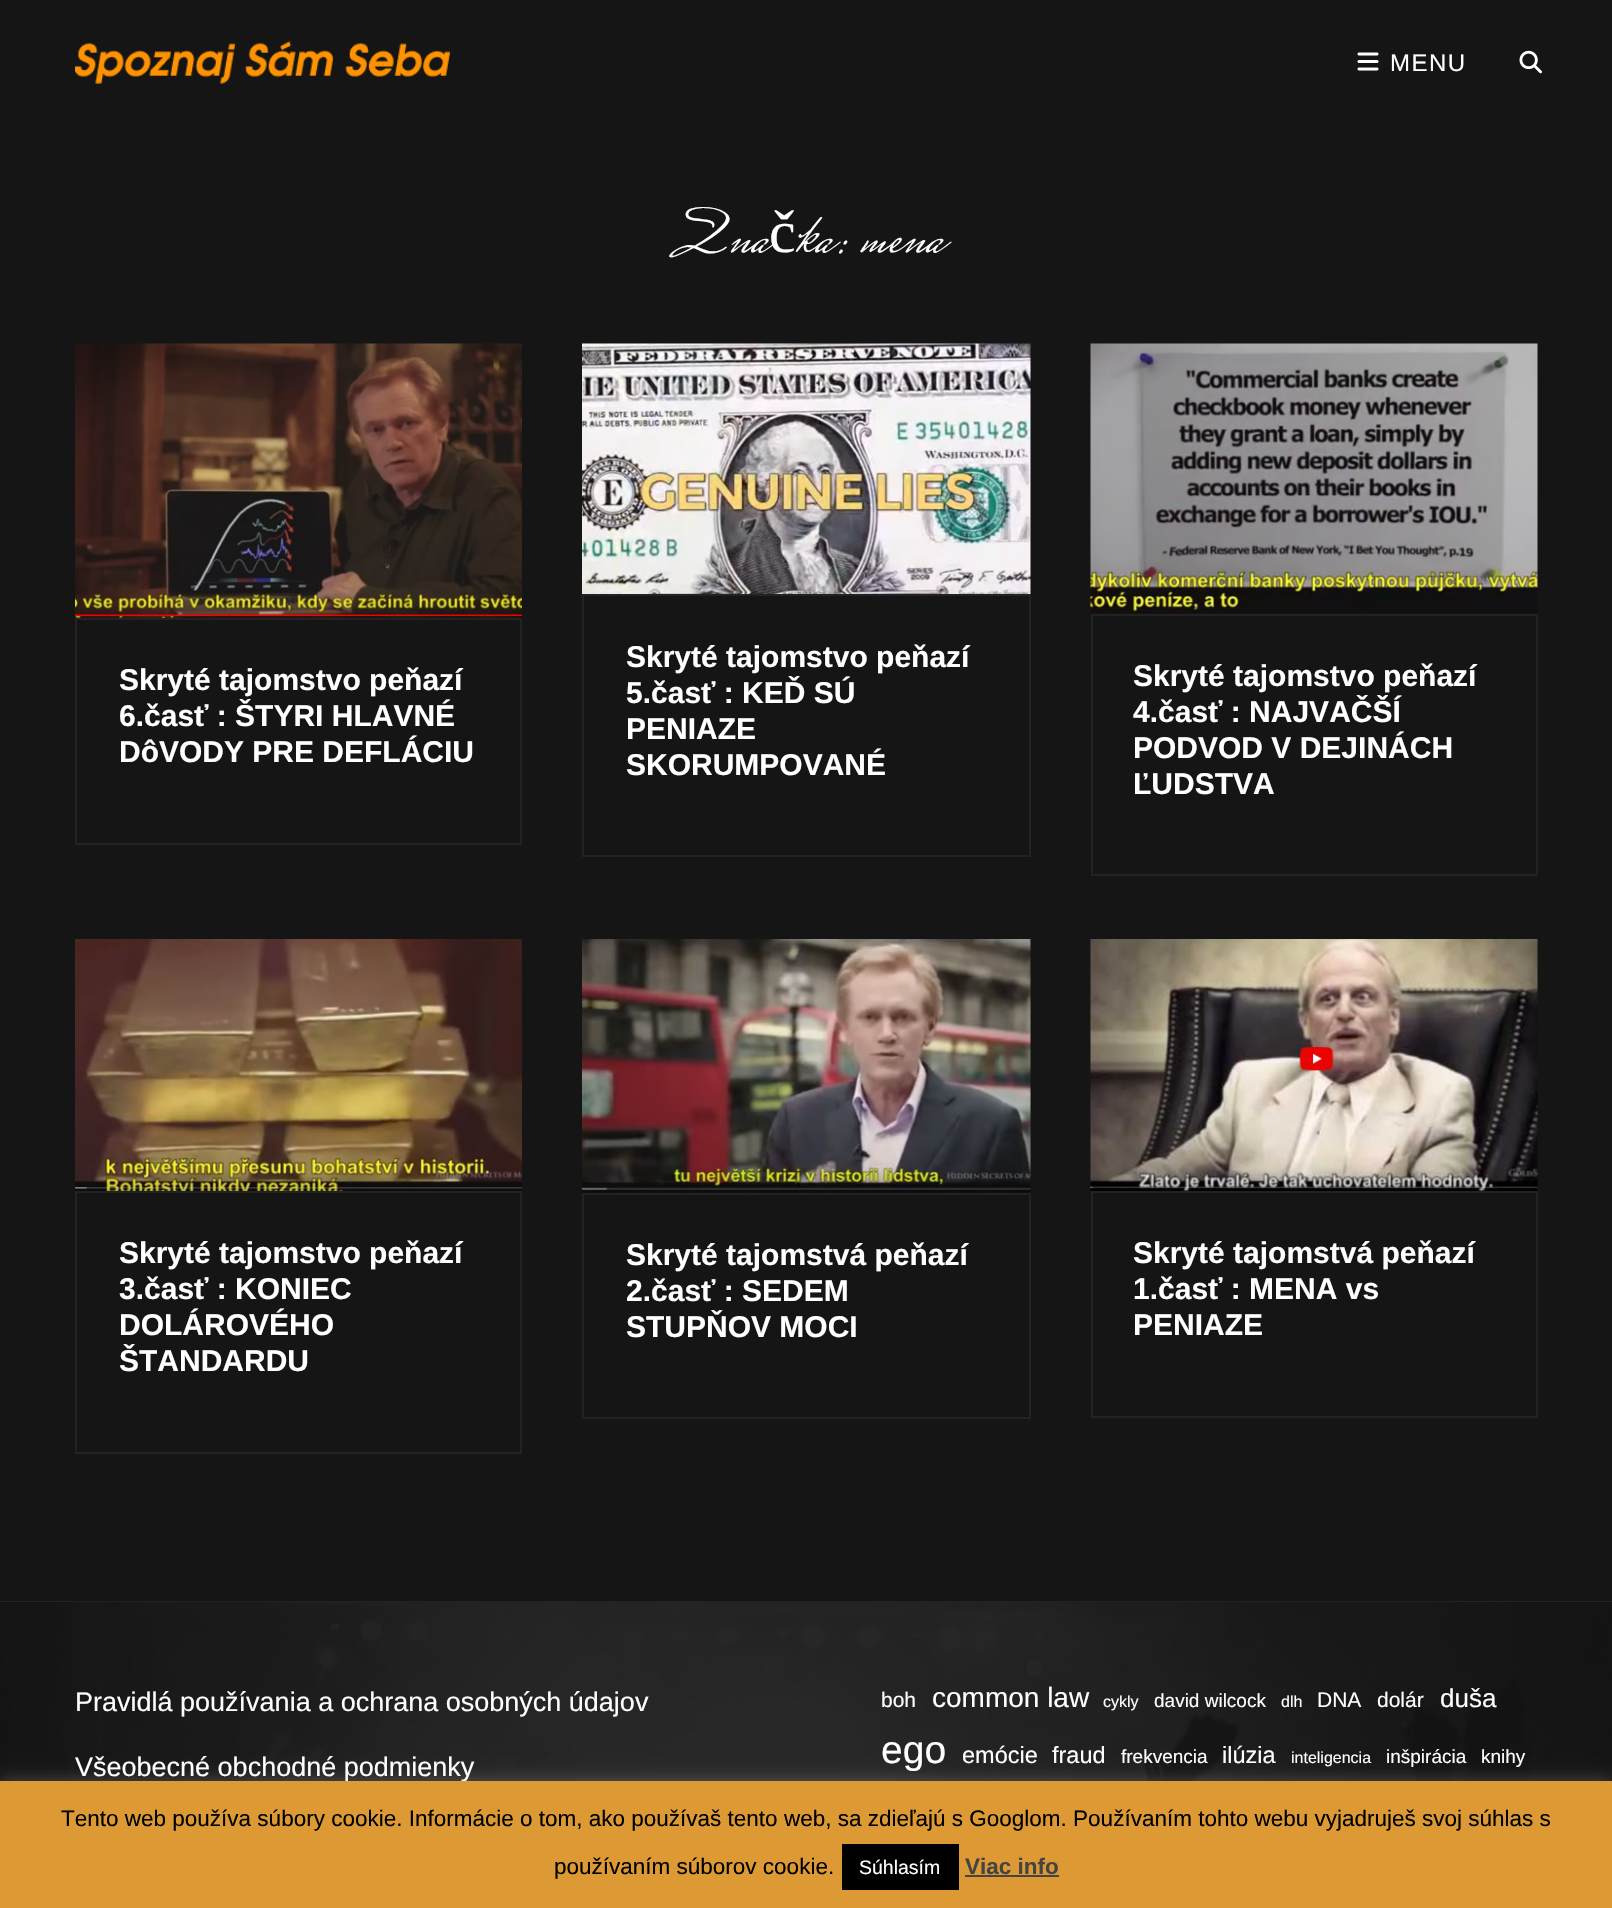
void draw(SkCanvas* canvas) {
	SkPaint fill;
	fill.setAntiAlias(true);
	auto makeFont = [&](const char* family, int weight, float size, bool italic = false) {
		SkFontStyle style(weight, SkFontStyle::kNormal_Width,
			italic ? SkFontStyle::kItalic_Slant : SkFontStyle::kUpright_Slant);
		SkFont result(fontMgr->matchFamilyStyle(family, style), size);
		result.setSubpixel(true);
		return result;
	};
	auto text = [&](const char* s, float x, float y, const SkFont& font) {
		canvas->drawString(s, x, y, font, fill);
	};
	auto spacedText = [&](const char* s, float x, float y, const SkFont& font, const SkPaint& ink, float letter, float word) {
		std::vector<SkGlyphID> glyphs(font.countText(s, strlen(s), SkTextEncoding::kUTF8));
		std::vector<float> xs(glyphs.size());
		font.textToGlyphs(s, strlen(s), SkTextEncoding::kUTF8, glyphs);
		font.getXPos(glyphs, xs, x);
		float extra = 0;
		for (size_t i = 0; i < glyphs.size(); i++) {
			xs[i] += extra;
			extra += letter + word * (glyphs[i] == font.unicharToGlyph(' '));
		}
		canvas->drawTextBlob(SkTextBlob::MakeFromPosHGlyphs(glyphs, xs, y, font), 0, 0, ink);
	};
	auto box = [&](float l, float t, float r, float b) {
		canvas->drawRect(SkRect::MakeLTRB(l, t, r, b), fill);
	};
	auto picture = [&](const char* path, float l, float t, float r, float b) {
		auto image = SkImages::DeferredFromEncodedData(SkData::MakeFromFileName(path));
		canvas->drawImageRect(image, SkRect::MakeLTRB(l, t, r, b), SkSamplingOptions());
	};
	canvas->clear(0xFF151515);
	picture("image0.png", 75, 41, 450, 84);
	picture("image1.png", 1357, 52, 1379, 71);
	picture("image2.png", 1519, 50, 1542, 74);
	fill.setColor(0xFF222222);
	box(0, 1601, 1612, 1602);
	picture("image3.png", 75, 343, 522, 618);
	fill.setStyle(SkPaint::kStroke_Style);
	fill.setStrokeWidth(2);
	canvas->drawRect(SkRect::MakeLTRB(76, 619, 521, 844), fill);
	picture("image4.png", 582, 343, 1031, 594);
	canvas->drawRect(SkRect::MakeLTRB(583, 595, 1030, 856), fill);
	picture("image5.png", 1090, 343, 1538, 614);
	canvas->drawRect(SkRect::MakeLTRB(1092, 615, 1537, 875), fill);
	picture("image6.png", 75, 939, 522, 1191);
	canvas->drawRect(SkRect::MakeLTRB(76, 1192, 521, 1453), fill);
	picture("image7.png", 582, 939, 1031, 1193);
	canvas->drawRect(SkRect::MakeLTRB(583, 1194, 1030, 1418), fill);
	picture("image8.png", 1090, 939, 1538, 1191);
	canvas->drawRect(SkRect::MakeLTRB(1092, 1192, 1537, 1417), fill);
	picture("image9.png", 0, 1602, 1612, 1781);
	fill.setStyle(SkPaint::kFill_Style);
	fill.setColor(0x4DACABAB);
	fill.setMaskFilter(SkMaskFilter::MakeBlur(kNormal_SkBlurStyle, 7.5f));
	canvas->drawRect(SkRect::MakeLTRB(0, 1779, 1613, 1907), fill);
	fill.setMaskFilter(nullptr);
	auto font1 = makeFont("Liberation Sans", 400, 24);
	fill.setColor(0xFFFFFFFF);
	spacedText("MENU", 1390, 71, font1, fill, 1.5f, 0);
	auto font2 = makeFont("Mrs Saint Delafield", 400, 60);
	text("Zna", 669, 252, font2);
	auto font3 = makeFont("Liberation Serif", 400, 60);
	text("č", 769, 252, font3);
	text("ka: mena", 796, 252, font2);
	auto font4 = makeFont("Liberation Sans", 700, 30);
	text("Skryté tajomstvo peňazí", 119, 690, font4);
	text("6.časť : ŠTYRI HLAVNÉ", 119, 726, font4);
	text("DôVODY PRE DEFLÁCIU", 119, 762, font4);
	text("Skryté tajomstvo peňazí", 626, 667, font4);
	text("5.časť : KEĎ SÚ", 626, 703, font4);
	text("PENIAZE", 626, 739, font4);
	text("SKORUMPOVANÉ", 626, 775, font4);
	text("Skryté tajomstvo peňazí", 1133, 686, font4);
	text("4.časť : NAJVAČŠÍ", 1133, 722, font4);
	text("PODVOD V DEJINÁCH", 1133, 758, font4);
	text("ĽUDSTVA", 1133, 794, font4);
	text("Skryté tajomstvo peňazí", 119, 1263, font4);
	text("3.časť : KONIEC", 119, 1299, font4);
	text("DOLÁROVÉHO", 119, 1335, font4);
	text("ŠTANDARDU", 119, 1371, font4);
	text("Skryté tajomstvá peňazí", 626, 1265, font4);
	text("2.časť : SEDEM", 626, 1301, font4);
	text("STUPŇOV MOCI", 626, 1337, font4);
	text("Skryté tajomstvá peňazí", 1133, 1263, font4);
	text("1.časť : MENA vs", 1133, 1299, font4);
	text("PENIAZE", 1133, 1335, font4);
	auto font5 = makeFont("Liberation Sans", 400, 27);
	text("Pravidlá používania a ochrana osobných údajov", 75, 1711, font5);
	text("Všeobecné obchodné podmienky", 75, 1776, font5);
	auto font6 = makeFont("Liberation Sans", 400, 21);
	text("boh", 881, 1707, font6);
	auto font7 = makeFont("Liberation Sans", 400, 28);
	text("common law", 932, 1707, font7);
	auto font8 = makeFont("Liberation Sans", 400, 16);
	text("cykly", 1103, 1707, font8);
	auto font9 = makeFont("Liberation Sans", 400, 19);
	text("david wilcock", 1154, 1707, font9);
	text("dlh", 1281, 1707, font8);
	text("DNA", 1317, 1707, font6);
	text("dolár", 1377, 1707, font6);
	auto font10 = makeFont("Liberation Sans", 400, 26);
	text("duša", 1440, 1707, font10);
	auto font11 = makeFont("Liberation Sans", 400, 39);
	text("ego", 881, 1763, font11);
	auto font12 = makeFont("Liberation Sans", 400, 23.5f);
	text("emócie", 962, 1763, font12);
	text("fraud", 1052, 1763, font12);
	text("frekvencia", 1121, 1763, font9);
	text("ilúzia", 1222, 1763, font12);
	text("inteligencia", 1291, 1763, font8);
	text("inšpirácia", 1386, 1763, font9);
	text("knihy", 1481, 1763, font9);
	fill.setColor(0xFFDD9933);
	box(0, 1781, 1612, 1908);
	auto font13 = makeFont("Liberation Sans", 400, 22.5f);
	fill.setColor(0xFF000000);
	text("Tento web používa súbory cookie. Informácie o tom, ako používaš tento web, sa zdieľajú s Googlom. Používaním tohto webu vyjadruješ svoj súhlas s", 61, 1826, font13);
	text("používaním súborov cookie.", 554, 1874, font13);
	box(842, 1844, 959, 1890);
	auto font14 = makeFont("Liberation Sans", 400, 19.5f);
	fill.setColor(0xFFFFFFFF);
	text("Súhlasím", 859, 1874, font14);
	auto font15 = makeFont("Liberation Sans", 700, 22.5f);
	fill.setColor(0xFF444444);
	text("Viac info", 965, 1874, font15);
	box(965, 1875, 1059, 1877);
}
